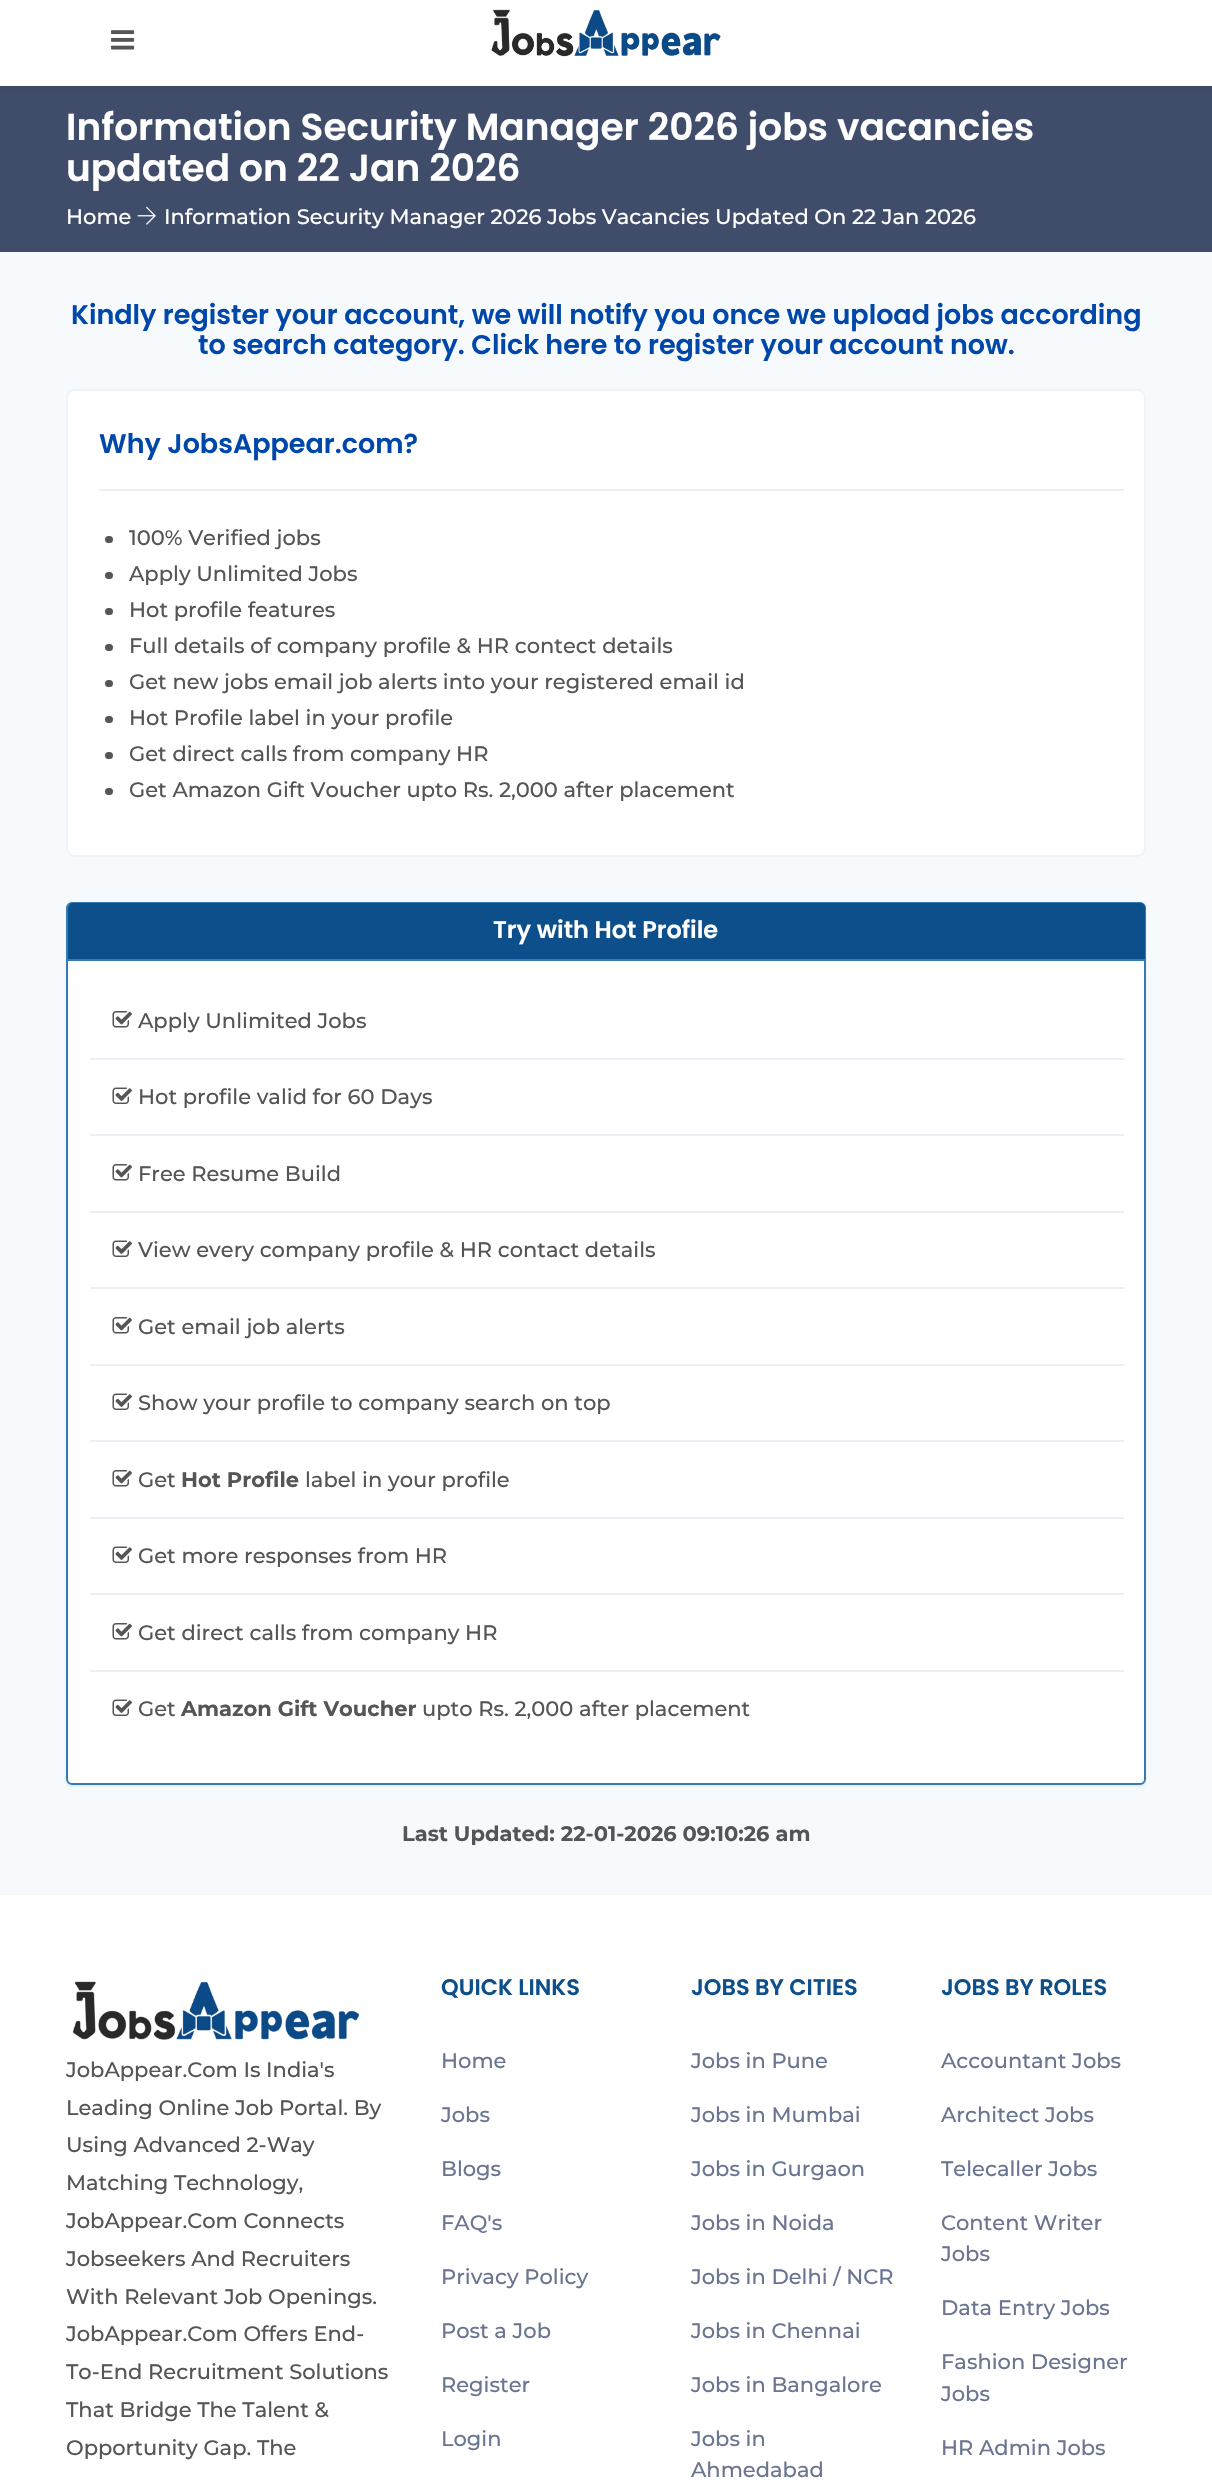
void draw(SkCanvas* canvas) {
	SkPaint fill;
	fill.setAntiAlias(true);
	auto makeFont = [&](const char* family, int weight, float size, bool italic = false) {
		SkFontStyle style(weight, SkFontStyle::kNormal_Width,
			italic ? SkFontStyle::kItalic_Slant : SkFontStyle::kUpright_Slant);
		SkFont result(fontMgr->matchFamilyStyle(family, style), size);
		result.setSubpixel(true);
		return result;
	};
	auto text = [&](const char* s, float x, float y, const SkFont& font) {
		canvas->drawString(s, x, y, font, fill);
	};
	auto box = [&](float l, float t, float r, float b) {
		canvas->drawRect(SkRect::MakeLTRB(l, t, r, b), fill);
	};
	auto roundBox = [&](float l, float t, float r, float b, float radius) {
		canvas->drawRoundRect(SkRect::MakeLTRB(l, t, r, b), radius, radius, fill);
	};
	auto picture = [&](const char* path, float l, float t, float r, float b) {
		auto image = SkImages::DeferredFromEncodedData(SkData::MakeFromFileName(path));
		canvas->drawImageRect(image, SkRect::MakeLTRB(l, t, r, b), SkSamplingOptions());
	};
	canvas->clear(0xFFFFFFFF);
	fill.setColor(0xFF3F4C6A);
	box(0, 86, 1212, 252);
	fill.setColor(0x0D000000);
	fill.setMaskFilter(SkMaskFilter::MakeBlur(kNormal_SkBlurStyle, 4.5f));
	canvas->drawRect(SkRect::MakeLTRB(0, 3, 1212, 89), fill);
	fill.setMaskFilter(nullptr);
	fill.setColor(0xFFFFFFFF);
	box(0, 0, 1212, 86);
	picture("image0.png", 111, 30, 135, 50);
	picture("image1.png", 491, 9, 721, 57);
	picture("image2.png", 137, 206, 156, 225);
	fill.setColor(0xFFF6FAFD);
	box(0, 252, 1212, 1893);
	fill.setColor(0xFFFFFFFF);
	canvas->drawRoundRect(SkRect::MakeLTRB(67, 390, 1145, 856), 8, 8, fill);
	fill.setStyle(SkPaint::kStroke_Style);
	fill.setStrokeWidth(2);
	fill.setColor(0xFFEEF4F9);
	canvas->drawRoundRect(SkRect::MakeLTRB(67, 390, 1145, 856), 8, 8, fill);
	fill.setStyle(SkPaint::kFill_Style);
	fill.setColor(0xFFEEEEEE);
	box(99, 489, 1124, 491);
	fill.setColor(0xFF555555);
	roundBox(105, 536, 113, 543, 3.5f);
	roundBox(105, 572, 113, 579, 3.5f);
	roundBox(105, 608, 113, 615, 3.5f);
	roundBox(105, 644, 113, 651, 3.5f);
	roundBox(105, 680, 113, 687, 3.5f);
	roundBox(105, 716, 113, 723, 3.5f);
	roundBox(105, 752, 113, 759, 3.5f);
	roundBox(105, 788, 113, 795, 3.5f);
	fill.setColor(0x0D000000);
	fill.setMaskFilter(SkMaskFilter::MakeBlur(kNormal_SkBlurStyle, 1));
	canvas->drawRoundRect(SkRect::MakeLTRB(66, 903, 1146, 1787), 6, 6, fill);
	fill.setMaskFilter(nullptr);
	fill.setColor(0xFFFFFFFF);
	canvas->drawRoundRect(SkRect::MakeLTRB(67, 903, 1145, 1784), 5, 5, fill);
	fill.setStyle(SkPaint::kStroke_Style);
	fill.setColor(0xFF337AB7);
	canvas->drawRoundRect(SkRect::MakeLTRB(67, 903, 1145, 1784), 5, 5, fill);
	fill.setStyle(SkPaint::kFill_Style);
	fill.setColor(0xFF0D4F8A);
	canvas->drawPath(SkPathBuilder().moveTo(73, 903).lineTo(1140, 903).cubicTo(1143, 903, 1145, 905, 1145, 908).lineTo(1145, 960).lineTo(68, 960).lineTo(68, 908).cubicTo(68, 905, 70, 903, 73, 903).close().detach(), fill);
	fill.setColor(0xFF337AB7);
	box(68, 959, 1145, 961);
	picture("image3.png", 112, 1011, 132, 1028);
	fill.setColor(0xFFEAEFF5);
	box(90, 1058, 1124, 1060);
	picture("image4.png", 112, 1087, 132, 1104);
	box(90, 1134, 1124, 1136);
	picture("image3.png", 112, 1164, 132, 1181);
	box(90, 1211, 1124, 1213);
	picture("image4.png", 112, 1240, 132, 1257);
	box(90, 1287, 1124, 1289);
	picture("image3.png", 112, 1317, 132, 1334);
	box(90, 1364, 1124, 1366);
	picture("image4.png", 112, 1393, 132, 1410);
	box(90, 1440, 1124, 1442);
	picture("image3.png", 112, 1470, 132, 1487);
	box(90, 1517, 1124, 1519);
	picture("image4.png", 112, 1546, 132, 1563);
	box(90, 1593, 1124, 1595);
	picture("image3.png", 112, 1623, 132, 1640);
	box(90, 1670, 1124, 1672);
	picture("image4.png", 112, 1699, 132, 1716);
	fill.setColor(0xFFF6F7F9);
	box(0, 1893, 1212, 1895);
	picture("image5.png", 72, 1981, 360, 2040);
	auto font1 = makeFont("Poppins", 600, 37.5f);
	fill.setColor(0xFFFFFFFF);
	text("Information Security Manager 2026 jobs vacancies", 66, 140, font1);
	text("updated on 22 Jan 2026", 66, 181, font1);
	auto font2 = makeFont("Montserrat", 500, 21);
	text("Home", 66, 224, font2);
	text("Information Security Manager 2026 Jobs Vacancies Updated On 22 Jan 2026", 164, 224, font2);
	auto font3 = makeFont("Poppins", 600, 27);
	fill.setColor(0xFF0047AB);
	text("Kindly register your account, we will notify you once we upload jobs according", 71, 324, font3);
	text("to search category. Click here to register your account now.", 198, 354, font3);
	text("Why JobsAppear.com?", 99, 453, font3);
	fill.setColor(0xFF555555);
	text("100% Verified jobs", 129, 545, font2);
	text("Apply Unlimited Jobs", 129, 581, font2);
	text("Hot profile features", 129, 617, font2);
	text("Full details of company profile & HR contect details", 129, 653, font2);
	text("Get new jobs email job alerts into your registered email id", 129, 689, font2);
	text("Hot Profile label in your profile", 129, 725, font2);
	text("Get direct calls from company HR", 129, 761, font2);
	text("Get Amazon Gift Voucher upto Rs. 2,000 after placement", 129, 797, font2);
	auto font4 = makeFont("Poppins", 600, 24);
	fill.setColor(0xFFFFFFFF);
	text("Try with Hot Profile", 493, 938, font4);
	fill.setColor(0xFF555555);
	text("Apply Unlimited Jobs", 138, 1028, font2);
	text("Hot profile valid for 60 Days", 138, 1104, font2);
	text("Free Resume Build", 138, 1181, font2);
	text("View every company profile & HR contact details", 138, 1257, font2);
	text("Get email job alerts", 138, 1334, font2);
	text("Show your profile to company search on top", 138, 1410, font2);
	text("Get", 138, 1487, font2);
	auto font5 = makeFont("Montserrat", 700, 21);
	text("Hot Profile", 181, 1487, font5);
	text("label in your profile", 305, 1487, font2);
	text("Get more responses from HR", 138, 1563, font2);
	text("Get direct calls from company HR", 138, 1640, font2);
	text("Get", 138, 1716, font2);
	text("Amazon Gift Voucher", 181, 1716, font5);
	text("upto Rs. 2,000 after placement", 422, 1716, font2);
	text("Last Updated: 22-01-2026 09:10:26 am", 402, 1841, font5);
	text("JobAppear.Com Is India's", 66, 2077, font2);
	text("Leading Online Job Portal. By", 66, 2115, font2);
	text("Using Advanced 2-Way", 66, 2152, font2);
	text("Matching Technology,", 66, 2190, font2);
	text("JobAppear.Com Connects", 66, 2228, font2);
	text("Jobseekers And Recruiters", 66, 2266, font2);
	text("With Relevant Job Openings.", 66, 2304, font2);
	text("JobAppear.Com Offers End-", 66, 2341, font2);
	text("To-End Recruitment Solutions", 66, 2379, font2);
	text("That Bridge The Talent &", 66, 2417, font2);
	text("Opportunity Gap. The", 66, 2455, font2);
	auto font6 = makeFont("Poppins", 600, 22.5f);
	fill.setColor(0xFF0D4F8A);
	text("QUICK LINKS", 441, 1995, font6);
	fill.setColor(0xFF6A7592);
	text("Home", 441, 2068, font2);
	text("Jobs", 441, 2122, font2);
	text("Blogs", 441, 2176, font2);
	text("FAQ's", 441, 2230, font2);
	text("Privacy Policy", 441, 2284, font2);
	text("Post a Job", 441, 2338, font2);
	text("Register", 441, 2392, font2);
	text("Login", 441, 2446, font2);
	fill.setColor(0xFF0D4F8A);
	text("JOBS BY CITIES", 691, 1995, font6);
	fill.setColor(0xFF6A7592);
	text("Jobs in Pune", 691, 2068, font2);
	text("Jobs in Mumbai", 691, 2122, font2);
	text("Jobs in Gurgaon", 691, 2176, font2);
	text("Jobs in Noida", 691, 2230, font2);
	text("Jobs in Delhi / NCR", 691, 2284, font2);
	text("Jobs in Chennai", 691, 2338, font2);
	text("Jobs in Bangalore", 691, 2392, font2);
	text("Jobs in", 691, 2446, font2);
	text("Ahmedabad", 691, 2477, font2);
	fill.setColor(0xFF0D4F8A);
	text("JOBS BY ROLES", 941, 1995, font6);
	fill.setColor(0xFF6A7592);
	text("Accountant Jobs", 941, 2068, font2);
	text("Architect Jobs", 941, 2122, font2);
	text("Telecaller Jobs", 941, 2176, font2);
	text("Content Writer", 941, 2230, font2);
	text("Jobs", 941, 2261, font2);
	text("Data Entry Jobs", 941, 2315, font2);
	text("Fashion Designer", 941, 2369, font2);
	text("Jobs", 941, 2401, font2);
	text("HR Admin Jobs", 941, 2455, font2);
}
